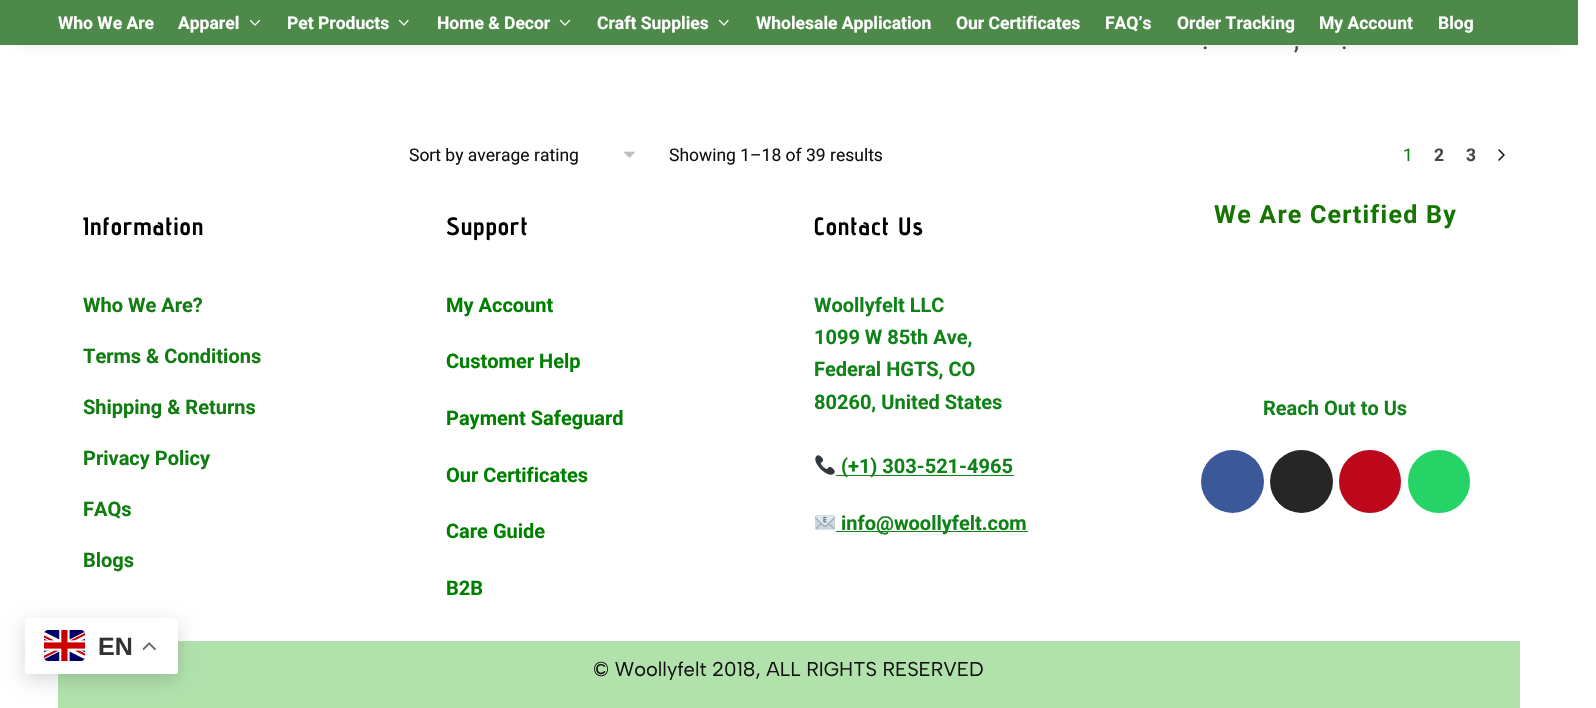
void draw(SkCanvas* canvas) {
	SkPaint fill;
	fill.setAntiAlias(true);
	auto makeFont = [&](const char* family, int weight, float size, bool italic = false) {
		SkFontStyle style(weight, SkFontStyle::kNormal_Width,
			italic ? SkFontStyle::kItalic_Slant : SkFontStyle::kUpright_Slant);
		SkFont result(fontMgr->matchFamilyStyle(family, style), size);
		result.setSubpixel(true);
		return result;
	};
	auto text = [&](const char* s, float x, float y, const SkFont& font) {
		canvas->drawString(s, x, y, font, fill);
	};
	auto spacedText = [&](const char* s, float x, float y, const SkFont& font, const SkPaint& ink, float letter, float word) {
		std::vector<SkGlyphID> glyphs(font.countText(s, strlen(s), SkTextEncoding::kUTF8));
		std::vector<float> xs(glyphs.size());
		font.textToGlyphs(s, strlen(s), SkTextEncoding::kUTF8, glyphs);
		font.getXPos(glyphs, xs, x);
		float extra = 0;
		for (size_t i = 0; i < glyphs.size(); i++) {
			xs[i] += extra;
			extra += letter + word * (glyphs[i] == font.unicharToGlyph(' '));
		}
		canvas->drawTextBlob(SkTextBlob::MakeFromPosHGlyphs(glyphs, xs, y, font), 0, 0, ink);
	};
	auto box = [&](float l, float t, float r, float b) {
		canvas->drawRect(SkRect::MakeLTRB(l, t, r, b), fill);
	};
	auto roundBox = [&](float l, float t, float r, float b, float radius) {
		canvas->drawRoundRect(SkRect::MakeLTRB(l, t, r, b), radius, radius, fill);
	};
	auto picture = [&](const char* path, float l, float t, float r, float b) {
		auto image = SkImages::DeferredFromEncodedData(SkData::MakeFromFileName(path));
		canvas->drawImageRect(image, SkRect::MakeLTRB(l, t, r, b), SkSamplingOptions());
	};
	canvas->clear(0xFFFFFFFF);
	fill.setColor(0x1A000000);
	fill.setMaskFilter(SkMaskFilter::MakeBlur(kNormal_SkBlurStyle, 6));
	canvas->drawRect(SkRect::MakeLTRB(19, 38, 1559, 45), fill);
	fill.setMaskFilter(nullptr);
	fill.setColor(0xFF4D8949);
	box(0, 0, 1578, 45);
	fill.setStyle(SkPaint::kStroke_Style);
	fill.setStrokeWidth(1.2f);
	fill.setStrokeCap(SkPaint::kRound_Cap);
	fill.setStrokeJoin(SkPaint::kRound_Join);
	fill.setColor(0xFFFFFFFF);
	canvas->drawPath(SkPathBuilder().moveTo(259.5f, 20.5f).lineTo(255, 25).lineTo(250.5f, 20.5f).detach(), fill);
	canvas->drawPath(SkPathBuilder().moveTo(408, 20.5f).lineTo(404, 25).lineTo(399.5f, 20.5f).detach(), fill);
	canvas->drawPath(SkPathBuilder().moveTo(569.5f, 20.5f).lineTo(565, 25).lineTo(560.5f, 20.5f).detach(), fill);
	canvas->drawPath(SkPathBuilder().moveTo(728, 20.5f).lineTo(724, 25).lineTo(719.5f, 20.5f).detach(), fill);
	picture("image0.png", 624, 151, 635, 158);
	fill.setStrokeWidth(1.5f);
	fill.setColor(0xFF111111);
	canvas->drawPath(SkPathBuilder().moveTo(1499, 150).lineTo(1504, 155).lineTo(1499, 160).detach(), fill);
	picture("image1.png", 815, 455, 835, 475);
	fill.setStyle(SkPaint::kFill_Style);
	fill.setColor(0xFF11821A);
	box(836, 475, 1014, 476);
	picture("image2.png", 815, 515, 835, 530);
	box(836, 531, 1028, 532);
	fill.setColor(0xFF3B5998);
	canvas->drawCircle(1232.5f, 481.5f, 31.5f, fill);
	fill.setColor(0xFF262626);
	canvas->drawCircle(1301.5f, 481.5f, 31.5f, fill);
	fill.setColor(0xFFBD081C);
	roundBox(1339, 450, 1401, 513, 31);
	fill.setColor(0xFF25D366);
	roundBox(1408, 450, 1470, 513, 31);
	fill.setColor(0xFFB1E2AC);
	box(58, 641, 1520, 708);
	fill.setColor(0x26000000);
	fill.setMaskFilter(SkMaskFilter::MakeBlur(kNormal_SkBlurStyle, 9.5f));
	canvas->drawRoundRect(SkRect::MakeLTRB(25, 624, 178, 680), 2.5f, 2.5f, fill);
	fill.setMaskFilter(nullptr);
	fill.setColor(0xFFFFFFFF);
	roundBox(25, 618, 178, 674, 2.5f);
	picture("image3.png", 44, 630, 85, 661);
	picture("image4.png", 143, 642, 156, 651);
	auto font1 = makeFont("Roboto", 700, 17.5f);
	text("Who We Are", 58, 29, font1);
	text("Apparel", 178, 29, font1);
	text("Pet Products", 287, 29, font1);
	text("Home & Decor", 437, 29, font1);
	text("Craft Supplies", 597, 29, font1);
	text("Wholesale Application", 756, 29, font1);
	text("Our Certificates", 956, 29, font1);
	text("FAQ’s", 1105, 29, font1);
	text("Order Tracking", 1177, 29, font1);
	text("My Account", 1319, 29, font1);
	text("Blog", 1438, 29, font1);
	auto font2 = makeFont("Roboto", 400, 25);
	fill.setColor(0xFF43454B);
	text(".", 1202, 49, font2);
	text(",", 1294, 49, font2);
	text(".", 1341, 49, font2);
	auto font3 = makeFont("Roboto", 400, 17.5f);
	fill.setColor(0xFF111111);
	text("Sort by average rating", 409, 161, font3);
	text("Showing 1–18 of 39 results", 669, 161, font3);
	fill.setColor(0xFF0F7C0B);
	text("1", 1403, 161, font3);
	fill.setColor(0xFF43454B);
	text("2", 1434, 161, font1);
	text("3", 1466, 161, font1);
	auto font4 = makeFont("Advent Pro", 700, 25);
	fill.setColor(0xFF000000);
	spacedText("Information", 83, 235, font4, fill, 1.25f, 0);
	auto font5 = makeFont("Roboto", 700, 20);
	fill.setColor(0xFF117D11);
	text("Who We Are?", 83, 312, font5);
	text("Terms & Conditions", 83, 363, font5);
	text("Shipping & Returns", 83, 414, font5);
	text("Privacy Policy", 83, 465, font5);
	text("FAQs", 83, 516, font5);
	text("Blogs", 83, 567, font5);
	fill.setColor(0xFF000000);
	spacedText("Support", 446, 235, font4, fill, 1.25f, 0);
	fill.setColor(0xFF008000);
	text("My Account", 446, 312, font5);
	text("Customer Help", 446, 368, font5);
	text("Payment Safeguard", 446, 425, font5);
	text("Our Certificates", 446, 482, font5);
	text("Care Guide", 446, 538, font5);
	text("B2B", 446, 595, font5);
	fill.setColor(0xFF000000);
	spacedText("Contact Us", 814, 235, font4, fill, 1.25f, 0);
	fill.setColor(0xFF11821A);
	text("Woollyfelt LLC", 814, 312, font5);
	text("1099 W 85th Ave,", 814, 344, font5);
	text("Federal HGTS, CO", 814, 376, font5);
	text("80260, United States", 814, 409, font5);
	text("(+1) 303-521-4965", 841, 473, font5);
	text("info@woollyfelt.com", 841, 530, font5);
	auto font6 = makeFont("Roboto", 700, 25);
	fill.setColor(0xFF167500);
	spacedText("We Are Certified By", 1214, 223, font6, fill, 1.25f, 0);
	fill.setColor(0xFF11821A);
	text("Reach Out to Us", 1263, 415, font5);
	auto font7 = makeFont("Albert Sans", 400, 20);
	fill.setColor(0xFF111111);
	text("© Woollyfelt 2018, ALL RIGHTS RESERVED", 593, 676, font7);
	auto font8 = makeFont("Liberation Sans", 700, 25);
	fill.setColor(0xFF333333);
	text("EN", 98, 655, font8);
}
